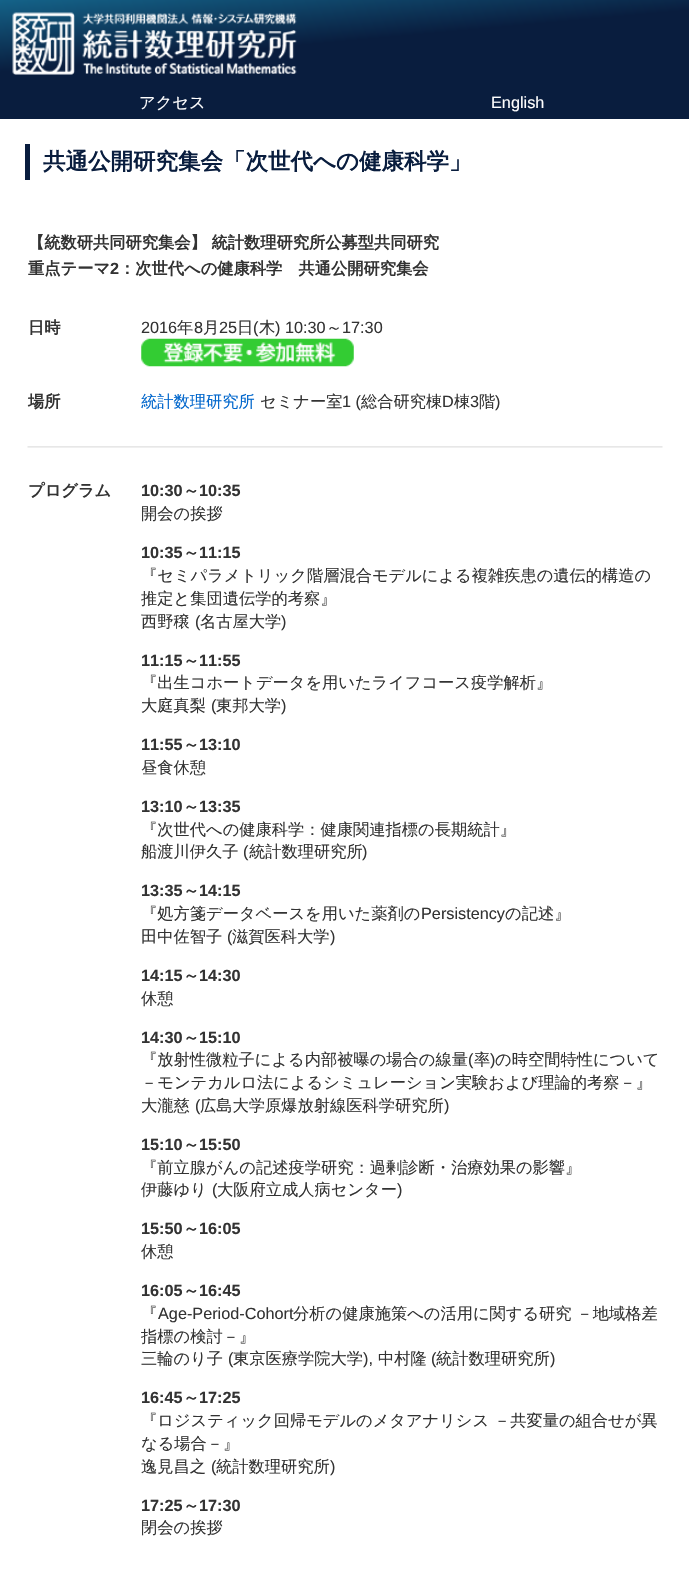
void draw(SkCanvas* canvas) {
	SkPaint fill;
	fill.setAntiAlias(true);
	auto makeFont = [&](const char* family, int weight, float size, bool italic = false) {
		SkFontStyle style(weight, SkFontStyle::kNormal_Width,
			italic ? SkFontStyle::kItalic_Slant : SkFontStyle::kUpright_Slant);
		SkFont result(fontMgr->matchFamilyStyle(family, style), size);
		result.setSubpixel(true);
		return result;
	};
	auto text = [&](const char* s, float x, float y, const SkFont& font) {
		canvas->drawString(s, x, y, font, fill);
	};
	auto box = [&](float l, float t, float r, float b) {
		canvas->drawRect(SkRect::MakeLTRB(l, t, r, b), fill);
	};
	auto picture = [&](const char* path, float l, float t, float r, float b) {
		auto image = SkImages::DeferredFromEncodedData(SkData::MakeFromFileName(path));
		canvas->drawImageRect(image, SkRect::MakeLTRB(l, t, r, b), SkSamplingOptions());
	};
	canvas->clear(0xFFFFFFFF);
	{
		const SkColor colors[] = {0xFF146288, 0xFF091D3E, 0xFF091D3E};
		const float stops[] = {0, 0.4f, 1};
		const SkPoint ends[] = {{337, -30}, {353, 148}};
		fill.setShader(SkGradientShader::MakeLinear(ends, colors, stops, 3, SkTileMode::kClamp));
		fill.setAlpha(255);
	}
	box(0, 0, 689, 119);
	picture("image0.png", 12, 12, 297, 75);
	fill.setShader(nullptr);
	fill.setColor(0xFF091D3E);
	box(25, 144, 30, 180);
	picture("image1.png", 141, 338, 354, 367);
	picture("image2.png", 27, 446, 663, 448);
	auto font1 = makeFont("WenQuanYi Zen Hei", 500, 16.25f);
	fill.setColor(0xFFFFFFFF);
	text("アクセス", 139, 108, font1);
	auto font2 = makeFont("Liberation Sans", 400, 16.25f);
	text("English", 491, 108, font2);
	auto font3 = makeFont("WenQuanYi Zen Hei", 700, 22.5f);
	fill.setColor(0xFF091D3E);
	text("共通公開研究集会「次世代への健康科学」", 43, 169, font3);
	auto font4 = makeFont("WenQuanYi Zen Hei", 700, 16.25f);
	fill.setColor(0xFF333333);
	text("【統数研共同研究集会】 統計数理研究所公募型共同研究", 28, 248, font4);
	text("重点テーマ", 28, 274, font4);
	auto font5 = makeFont("Liberation Sans", 700, 16.25f);
	text("2", 110, 274, font5);
	text("：次世代への健康科学　共通公開研究集会", 119, 274, font4);
	text("日時", 28, 333, font4);
	text("2016", 141, 333, font2);
	text("年", 177, 333, font1);
	text("8", 194, 333, font2);
	text("月", 203, 333, font1);
	text("25", 219, 333, font2);
	text("日", 237, 333, font1);
	text("(", 253, 333, font2);
	text("木", 259, 333, font1);
	text(") 10:30", 275, 333, font2);
	text("～", 326, 333, font1);
	text("17:30", 342, 333, font2);
	text("場所", 28, 407, font4);
	fill.setColor(0xFF0066CC);
	text("統計数理研究所", 141, 407, font1);
	fill.setColor(0xFF333333);
	text("セミナー室", 260, 407, font1);
	text("1 (", 342, 407, font2);
	text("総合研究棟", 361, 407, font1);
	text("D", 442, 407, font2);
	text("棟", 454, 407, font1);
	text("3", 470, 407, font2);
	text("階", 479, 407, font1);
	text(")", 495, 407, font2);
	text("プログラム", 28, 496, font4);
	text("10:30", 141, 496, font5);
	text("～", 183, 496, font4);
	text("10:35", 199, 496, font5);
	text("開会の挨拶", 141, 519, font1);
	text("10:35", 141, 558, font5);
	text("～", 183, 558, font4);
	text("11:15", 199, 558, font5);
	text("『セミパラメトリック階層混合モデルによる複雑疾患の遺伝的構造の", 141, 581, font1);
	text("推定と集団遺伝学的考察』", 141, 604, font1);
	text("西野穣", 141, 627, font1);
	text("(", 195, 627, font2);
	text("名古屋大学", 200, 627, font1);
	text(")", 281, 627, font2);
	text("11:15", 141, 666, font5);
	text("～", 183, 666, font4);
	text("11:55", 199, 666, font5);
	text("『出生コホートデータを用いたライフコース疫学解析』", 141, 688, font1);
	text("大庭真梨", 141, 711, font1);
	text("(", 211, 711, font2);
	text("東邦大学", 216, 711, font1);
	text(")", 281, 711, font2);
	text("11:55", 141, 750, font5);
	text("～", 183, 750, font4);
	text("13:10", 199, 750, font5);
	text("昼食休憩", 141, 773, font1);
	text("13:10", 141, 812, font5);
	text("～", 183, 812, font4);
	text("13:35", 199, 812, font5);
	text("『次世代への健康科学：健康関連指標の長期統計』", 141, 835, font1);
	text("船渡川伊久子", 141, 857, font1);
	text("(", 243, 857, font2);
	text("統計数理研究所", 249, 857, font1);
	text(")", 362, 857, font2);
	text("13:35", 141, 896, font5);
	text("～", 183, 896, font4);
	text("14:15", 199, 896, font5);
	text("『処方箋データベースを用いた薬剤の", 141, 919, font1);
	text("Persistency", 421, 919, font2);
	text("の記述』", 505, 919, font1);
	text("田中佐智子", 141, 942, font1);
	text("(", 227, 942, font2);
	text("滋賀医科大学", 232, 942, font1);
	text(")", 330, 942, font2);
	text("14:15", 141, 981, font5);
	text("～", 183, 981, font4);
	text("14:30", 199, 981, font5);
	text("休憩", 141, 1004, font1);
	text("14:30", 141, 1043, font5);
	text("～", 183, 1043, font4);
	text("15:10", 199, 1043, font5);
	text("『放射性微粒子による内部被曝の場合の線量", 141, 1065, font1);
	text("(", 468, 1065, font2);
	text("率", 474, 1065, font1);
	text(")", 490, 1065, font2);
	text("の時空間特性について", 495, 1065, font1);
	text("－モンテカルロ法によるシミュレーション実験および理論的考察－』", 141, 1088, font1);
	text("大瀧慈", 141, 1111, font1);
	text("(", 195, 1111, font2);
	text("広島大学原爆放射線医科学研究所", 200, 1111, font1);
	text(")", 444, 1111, font2);
	text("15:10", 141, 1150, font5);
	text("～", 183, 1150, font4);
	text("15:50", 199, 1150, font5);
	text("『前立腺がんの記述疫学研究：過剰診断・治療効果の影響』", 141, 1173, font1);
	text("伊藤ゆり", 141, 1195, font1);
	text("(", 212, 1195, font2);
	text("大阪府立成人病センター", 217, 1195, font1);
	text(")", 397, 1195, font2);
	text("15:50", 141, 1234, font5);
	text("～", 183, 1234, font4);
	text("16:05", 199, 1234, font5);
	text("休憩", 141, 1257, font1);
	text("16:05", 141, 1296, font5);
	text("～", 183, 1296, font4);
	text("16:45", 199, 1296, font5);
	text("『", 141, 1319, font1);
	text("Age-Period-Cohort", 158, 1319, font2);
	text("分析の健康施策への活用に関する研究 －地域格差", 293, 1319, font1);
	text("指標の検討－』", 141, 1342, font1);
	text("三輪のり子", 141, 1364, font1);
	text("(", 228, 1364, font2);
	text("東京医療学院大学", 233, 1364, font1);
	text("),", 363, 1364, font2);
	text("中村隆", 378, 1364, font1);
	text("(", 431, 1364, font2);
	text("統計数理研究所", 436, 1364, font1);
	text(")", 550, 1364, font2);
	text("16:45", 141, 1403, font5);
	text("～", 183, 1403, font4);
	text("17:25", 199, 1403, font5);
	text("『ロジスティック回帰モデルのメタアナリシス －共変量の組合せが異", 141, 1426, font1);
	text("なる場合－』", 141, 1449, font1);
	text("逸見昌之", 141, 1472, font1);
	text("(", 211, 1472, font2);
	text("統計数理研究所", 216, 1472, font1);
	text(")", 330, 1472, font2);
	text("17:25", 141, 1511, font5);
	text("～", 183, 1511, font4);
	text("17:30", 199, 1511, font5);
	text("閉会の挨拶", 141, 1533, font1);
}
